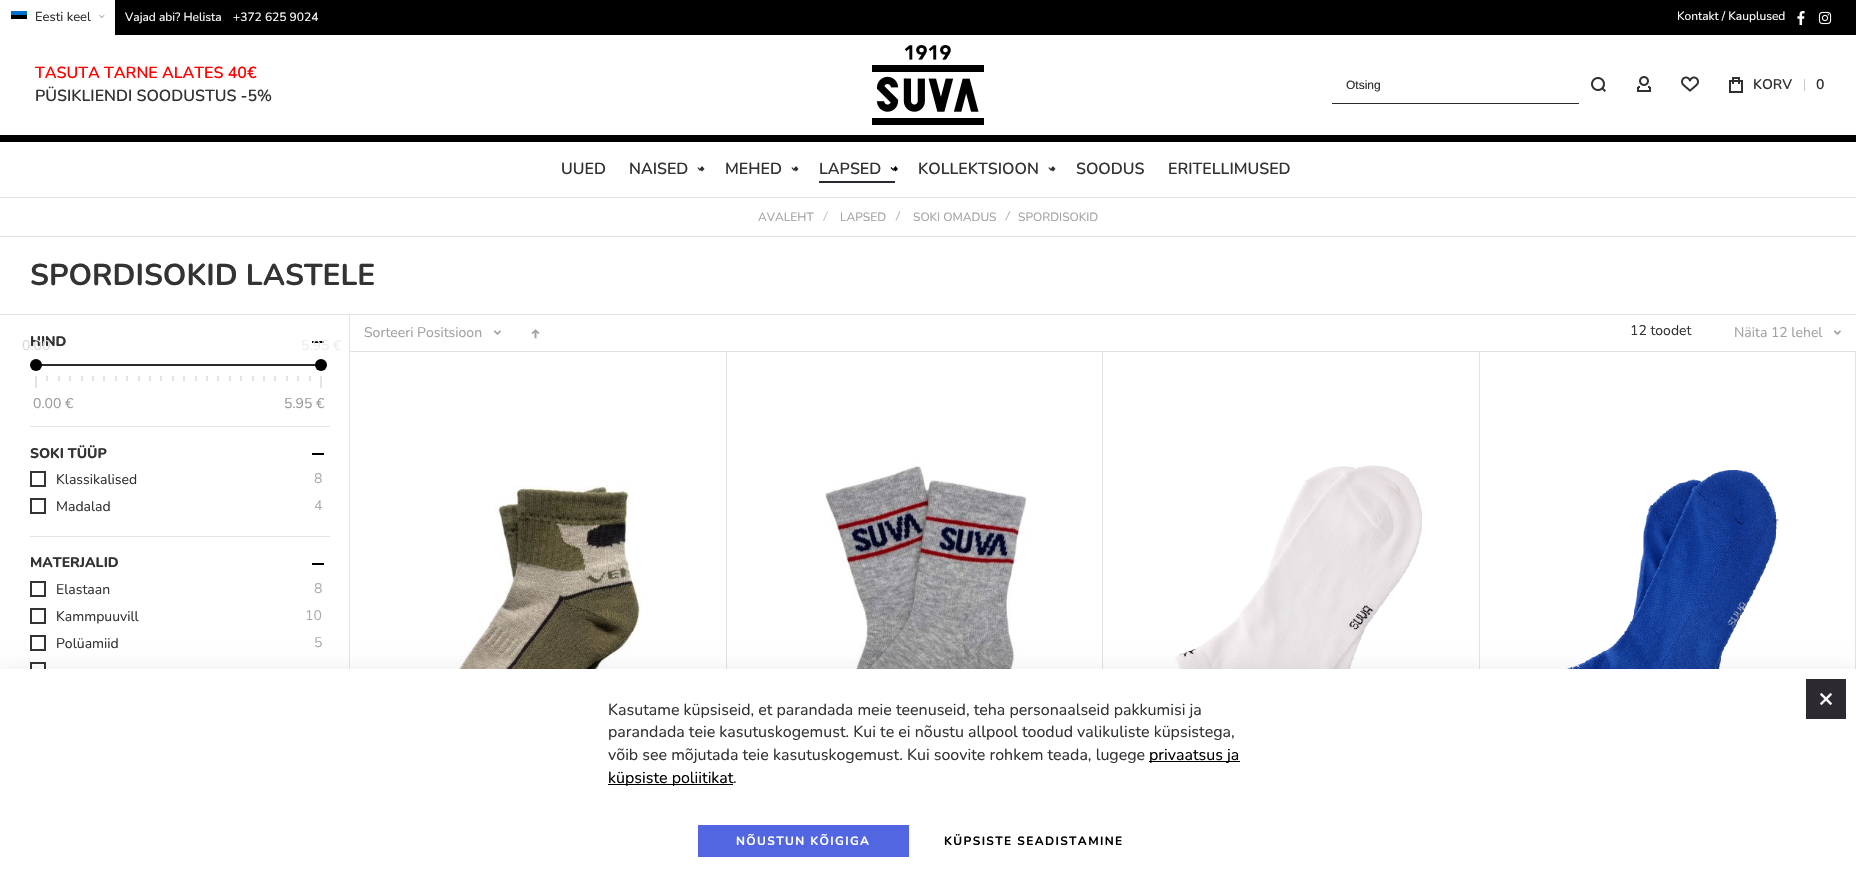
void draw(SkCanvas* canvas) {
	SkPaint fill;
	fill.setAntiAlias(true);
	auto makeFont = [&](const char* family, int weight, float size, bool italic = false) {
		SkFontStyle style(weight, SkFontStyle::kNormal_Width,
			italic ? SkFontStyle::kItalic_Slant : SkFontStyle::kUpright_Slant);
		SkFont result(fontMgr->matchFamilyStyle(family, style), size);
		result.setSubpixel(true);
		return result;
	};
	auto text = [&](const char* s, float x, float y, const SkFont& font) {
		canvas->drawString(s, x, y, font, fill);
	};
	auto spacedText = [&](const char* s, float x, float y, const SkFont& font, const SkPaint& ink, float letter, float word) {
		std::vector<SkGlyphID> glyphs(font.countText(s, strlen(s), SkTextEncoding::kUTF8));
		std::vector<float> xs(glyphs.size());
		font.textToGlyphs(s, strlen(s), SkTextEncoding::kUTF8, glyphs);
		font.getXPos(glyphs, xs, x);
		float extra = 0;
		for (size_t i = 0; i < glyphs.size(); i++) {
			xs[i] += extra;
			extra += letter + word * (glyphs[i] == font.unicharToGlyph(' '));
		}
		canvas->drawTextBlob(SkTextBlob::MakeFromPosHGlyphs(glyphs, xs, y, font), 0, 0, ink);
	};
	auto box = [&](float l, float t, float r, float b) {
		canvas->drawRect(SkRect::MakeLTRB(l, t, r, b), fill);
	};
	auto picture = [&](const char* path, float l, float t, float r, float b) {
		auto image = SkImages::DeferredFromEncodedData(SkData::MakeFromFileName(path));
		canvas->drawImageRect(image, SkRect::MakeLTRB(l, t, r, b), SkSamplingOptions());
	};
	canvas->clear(0xFFFFFFFF);
	fill.setColor(0xFFE3E3E3);
	box(0, 197, 1856, 198);
	fill.setColor(0xFF000000);
	box(115, 0, 1856, 35);
	picture("image0.png", 11, 11, 27, 19);
	fill.setColor(0xFF969696);
	canvas->drawPath(SkPathBuilder().moveTo(99.5f, 15).lineTo(102.5f, 17.5f).lineTo(102, 18).lineTo(99, 15.5f).close().detach(), fill);
	canvas->drawPath(SkPathBuilder().moveTo(101, 17.5f).lineTo(104, 15).lineTo(104.5f, 15.5f).lineTo(101.5f, 18).close().detach(), fill);
	picture("image1.png", 1797, 11, 1805, 25);
	picture("image2.png", 1818, 11, 1832, 25);
	picture("image3.png", 872, 45, 984, 125);
	fill.setColor(0xFF2A2A2A);
	box(1332, 103, 1579, 104);
	picture("image4.png", 1591, 77, 1606, 92);
	picture("image5.png", 1637, 76, 1651, 92);
	picture("image6.png", 1681, 76, 1699, 92);
	picture("image7.png", 1729, 77, 1743, 93);
	fill.setColor(0xFFC9C9C9);
	box(1804, 79, 1805, 91);
	fill.setColor(0xFF000000);
	box(0, 135, 1856, 142);
	fill.setColor(0xFF303030);
	canvas->drawPath(SkPathBuilder().moveTo(698, 167).lineTo(701, 170).lineTo(700, 171).lineTo(697.5f, 168).close().detach(), fill);
	canvas->drawPath(SkPathBuilder().moveTo(699.5f, 169).lineTo(702, 166).lineTo(704.5f, 169).lineTo(702, 171.5f).close().detach(), fill);
	canvas->drawPath(SkPathBuilder().moveTo(792, 167).lineTo(795, 170).lineTo(794, 171).lineTo(791.5f, 168).close().detach(), fill);
	canvas->drawPath(SkPathBuilder().moveTo(793.5f, 169).lineTo(796, 166).lineTo(798.5f, 169).lineTo(796, 171.5f).close().detach(), fill);
	fill.setColor(0xFF000000);
	canvas->drawPath(SkPathBuilder().moveTo(891.5f, 167).lineTo(894, 170).lineTo(893.5f, 171).lineTo(890.5f, 168).close().detach(), fill);
	canvas->drawPath(SkPathBuilder().moveTo(893, 169).lineTo(895.5f, 166).lineTo(898, 169).lineTo(895.5f, 171.5f).close().detach(), fill);
	fill.setColor(0xFF2C2930);
	box(819, 181, 895, 183);
	fill.setColor(0xFF303030);
	canvas->drawPath(SkPathBuilder().moveTo(1049, 167).lineTo(1052, 170).lineTo(1051, 171).lineTo(1048.5f, 168).close().detach(), fill);
	canvas->drawPath(SkPathBuilder().moveTo(1050.5f, 169).lineTo(1053, 166).lineTo(1055.5f, 169).lineTo(1053, 171.5f).close().detach(), fill);
	fill.setColor(0xFFE3E3E3);
	box(0, 236, 1856, 237);
	fill.setColor(0xFFB3B3B3);
	canvas->drawPath(SkPathBuilder().moveTo(827.5f, 211).lineTo(828, 211.5f).lineTo(824, 220.5f).lineTo(823, 220.5f).close().detach(), fill);
	canvas->drawPath(SkPathBuilder().moveTo(899.5f, 211).lineTo(900.5f, 211.5f).lineTo(896.5f, 220.5f).lineTo(895.5f, 220.5f).close().detach(), fill);
	canvas->drawPath(SkPathBuilder().moveTo(1009.5f, 211).lineTo(1010.5f, 211.5f).lineTo(1006, 220.5f).lineTo(1005, 220.5f).close().detach(), fill);
	fill.setColor(0xFFE3E3E3);
	box(0, 314, 1856, 315);
	box(349, 315, 350, 352);
	picture("image8.png", 493, 330, 501, 335);
	picture("image9.png", 531, 329, 540, 339);
	picture("image8.png", 1833, 330, 1841, 335);
	fill.setStyle(SkPaint::kStroke_Style);
	fill.setStrokeWidth(1);
	canvas->drawRect(SkRect::MakeLTRB(349.5f, 351.5f, 726.5f, 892.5f), fill);
	picture("image10.png", 430, 486, 641, 669);
	canvas->drawRect(SkRect::MakeLTRB(726.5f, 351.5f, 1102.5f, 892.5f), fill);
	picture("image11.png", 824, 463, 1028, 669);
	canvas->drawRect(SkRect::MakeLTRB(1102.5f, 351.5f, 1479.5f, 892.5f), fill);
	picture("image12.png", 1175, 465, 1422, 669);
	canvas->drawRect(SkRect::MakeLTRB(1479.5f, 351.5f, 1855.5f, 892.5f), fill);
	picture("image13.png", 1566, 470, 1779, 669);
	fill.setStyle(SkPaint::kFill_Style);
	fill.setColor(0xFF000000);
	box(312, 341, 324, 343);
	fill.setColor(0xFF2C2930);
	box(36, 364, 321, 366);
	fill.setColor(0xFF000000);
	canvas->drawCircle(36, 365, 6, fill);
	canvas->drawCircle(321, 365, 6, fill);
	fill.setColor(0xFFE4E4E4);
	box(35, 376, 37, 388);
	box(46, 376, 48, 381);
	box(58, 376, 60, 381);
	box(69, 376, 71, 381);
	box(81, 376, 83, 381);
	box(92, 376, 94, 381);
	box(103, 376, 105, 381);
	box(115, 376, 117, 381);
	box(126, 376, 128, 381);
	box(138, 376, 140, 381);
	box(149, 376, 151, 381);
	box(160, 376, 162, 381);
	box(172, 376, 174, 381);
	box(183, 376, 185, 381);
	box(195, 376, 197, 381);
	box(206, 376, 208, 381);
	box(217, 376, 219, 381);
	box(229, 376, 231, 381);
	box(240, 376, 242, 381);
	box(252, 376, 254, 381);
	box(263, 376, 265, 381);
	box(274, 376, 276, 381);
	box(286, 376, 288, 381);
	box(297, 376, 299, 381);
	box(309, 376, 311, 381);
	box(320, 376, 322, 388);
	box(30, 426, 330, 427);
	fill.setColor(0xFF000000);
	box(312, 453, 324, 455);
	fill.setStyle(SkPaint::kStroke_Style);
	fill.setStrokeWidth(2);
	fill.setColor(0xFF333333);
	canvas->drawRect(SkRect::MakeLTRB(31, 472, 45, 486), fill);
	canvas->drawRect(SkRect::MakeLTRB(31, 499, 45, 513), fill);
	fill.setStyle(SkPaint::kFill_Style);
	fill.setColor(0xFFE4E4E4);
	box(30, 536, 330, 537);
	fill.setColor(0xFF000000);
	box(312, 563, 324, 565);
	fill.setStyle(SkPaint::kStroke_Style);
	fill.setColor(0xFF333333);
	canvas->drawRect(SkRect::MakeLTRB(31, 582, 45, 596), fill);
	canvas->drawRect(SkRect::MakeLTRB(31, 609, 45, 623), fill);
	canvas->drawRect(SkRect::MakeLTRB(31, 636, 45, 650), fill);
	canvas->drawRect(SkRect::MakeLTRB(31, 663, 45, 677), fill);
	fill.setStyle(SkPaint::kFill_Style);
	fill.setColor(0x0F000000);
	fill.setMaskFilter(SkMaskFilter::MakeBlur(kNormal_SkBlurStyle, 9));
	canvas->drawRect(SkRect::MakeLTRB(0, 667, 1856, 890), fill);
	fill.setMaskFilter(nullptr);
	fill.setColor(0xFFFFFFFF);
	box(0, 669, 1856, 892);
	fill.setColor(0xFF2C2930);
	box(1806, 679, 1846, 719);
	fill.setColor(0xFF000000);
	box(1149, 761, 1240, 762);
	box(608, 784, 733, 785);
	fill.setColor(0xFF5166E0);
	box(698, 825, 909, 857);
	auto font1 = makeFont("Nunito", 400, 13);
	fill.setColor(0xFF2A2A2A);
	text("Eesti keel", 35, 21, font1);
	auto font2 = makeFont("Nunito", 400, 12);
	fill.setColor(0xFFFFFFFF);
	text("Vajad abi? Helista", 125, 21, font2);
	text("+372 625 9024", 233, 21, font2);
	text("Kontakt / Kauplused", 1677, 20, font2);
	auto font3 = makeFont("Nunito", 600, 16);
	fill.setColor(0xFFFF0000);
	text("TASUTA TARNE ALATES 40€", 35, 78, font3);
	fill.setColor(0xFF333333);
	text("PÜSIKLIENDI SOODUSTUS -5%", 35, 101, font3);
	auto font4 = makeFont("Liberation Sans", 400, 12);
	fill.setColor(0xFF2A2A2A);
	text("Otsing", 1346, 89, font4);
	auto font5 = makeFont("Nunito", 600, 14);
	fill.setColor(0xFF333333);
	text("KORV", 1753, 89, font5);
	text("0", 1816, 89, font5);
	text("UUED", 561, 174, font3);
	text("NAISED", 629, 174, font3);
	text("MEHED", 725, 174, font3);
	text("LAPSED", 819, 174, font3);
	text("KOLLEKTSIOON", 918, 174, font3);
	text("SOODUS", 1076, 174, font3);
	text("ERITELLIMUSED", 1168, 174, font3);
	fill.setColor(0xFFA2A2A2);
	text("AVALEHT", 758, 221, font2);
	text("LAPSED", 840, 221, font2);
	text("SOKI OMADUS", 913, 221, font2);
	text("SPORDISOKID", 1018, 221, font2);
	auto font6 = makeFont("Nunito", 700, 30);
	fill.setColor(0xFF333333);
	text("SPORDISOKID LASTELE", 30, 285, font6);
	auto font7 = makeFont("Nunito", 400, 14);
	fill.setColor(0xFFA2A2A2);
	text("Sorteeri Positsioon", 364, 337, font7);
	fill.setColor(0xFF333333);
	text("12 toodet", 1630, 335, font7);
	fill.setColor(0xFFA2A2A2);
	text("Näita 12 lehel", 1734, 337, font7);
	auto font8 = makeFont("Nunito", 800, 14);
	fill.setColor(0xFF333333);
	text("HIND", 30, 346, font8);
	fill.setColor(0xFFD9D9D9);
	text("0.00", 22, 350, font7);
	fill.setColor(0xFFEDEDED);
	text("5.95 €", 301, 350, font7);
	fill.setColor(0xFF999999);
	text("0.00 €", 33, 408, font7);
	text("5.95 €", 284, 408, font7);
	fill.setColor(0xFF333333);
	text("SOKI TÜÜP", 30, 458, font8);
	text("Klassikalised", 56, 484, font7);
	fill.setColor(0xFFADADAD);
	text("8", 314, 483, font7);
	fill.setColor(0xFF333333);
	text("Madalad", 56, 511, font7);
	fill.setColor(0xFFADADAD);
	text("4", 314, 510, font7);
	fill.setColor(0xFF333333);
	text("MATERJALID", 30, 567, font8);
	text("Elastaan", 56, 594, font7);
	fill.setColor(0xFFADADAD);
	text("8", 314, 593, font7);
	fill.setColor(0xFF333333);
	text("Kammpuuvill", 56, 621, font7);
	fill.setColor(0xFFADADAD);
	text("10", 305, 620, font7);
	fill.setColor(0xFF333333);
	text("Polüamiid", 56, 648, font7);
	fill.setColor(0xFFADADAD);
	text("5", 314, 647, font7);
	auto font9 = makeFont("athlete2", 400, 12);
	fill.setColor(0xFFFFFFFF);
	spacedText("@", 1820, 705, font9, fill, 1, 0);
	auto font10 = makeFont("Nunito", 400, 16);
	fill.setColor(0xFF333333);
	text("Kasutame küpsiseid, et parandada meie teenuseid, teha personaalseid pakkumisi ja", 608, 715, font10);
	text("parandada teie kasutuskogemust. Kui te ei nõustu allpool toodud valikuliste küpsistega,", 608, 737, font10);
	text("võib see mõjutada teie kasutuskogemust. Kui soovite rohkem teada, lugege", 608, 760, font10);
	fill.setColor(0xFF000000);
	text("privaatsus ja", 1149, 760, font10);
	text("küpsiste poliitikat", 608, 783, font10);
	fill.setColor(0xFF333333);
	text(".", 733, 783, font10);
	auto font11 = makeFont("Nunito", 700, 12);
	fill.setColor(0xFFFFFFFF);
	spacedText("NÕUSTUN KÕIGIGA", 736, 845, font11, fill, 1.35f, 0);
	fill.setColor(0xFF000000);
	spacedText("KÜPSISTE SEADISTAMINE", 944, 845, font11, fill, 1.35f, 0);
}
